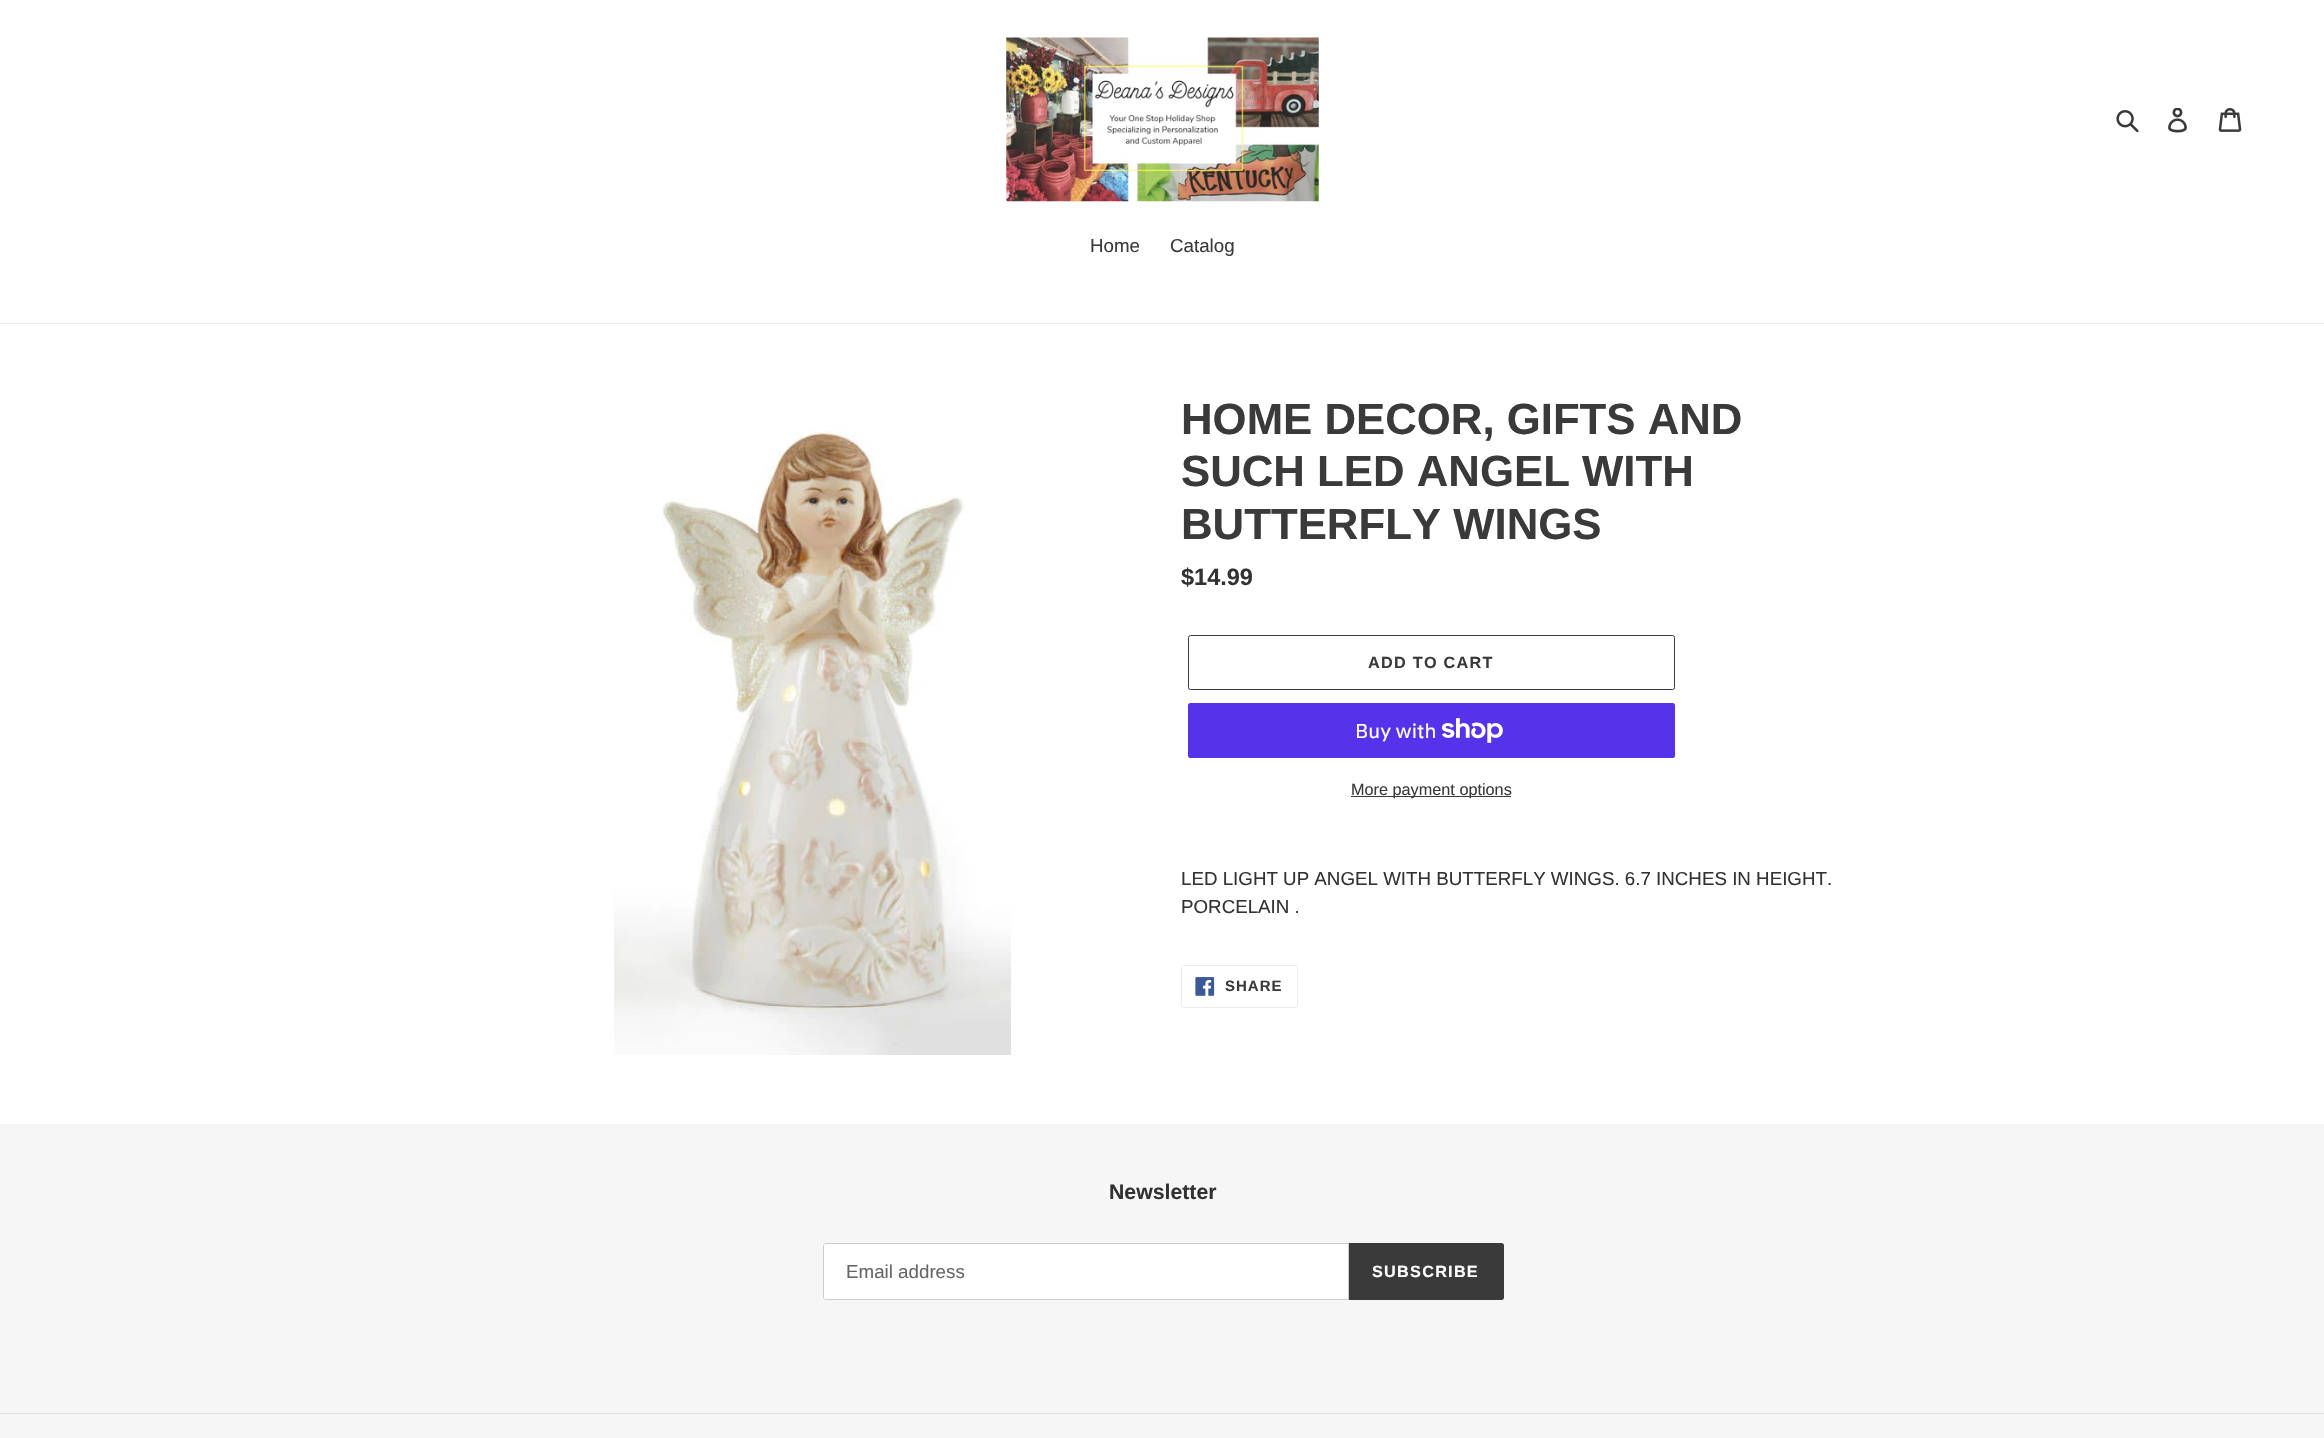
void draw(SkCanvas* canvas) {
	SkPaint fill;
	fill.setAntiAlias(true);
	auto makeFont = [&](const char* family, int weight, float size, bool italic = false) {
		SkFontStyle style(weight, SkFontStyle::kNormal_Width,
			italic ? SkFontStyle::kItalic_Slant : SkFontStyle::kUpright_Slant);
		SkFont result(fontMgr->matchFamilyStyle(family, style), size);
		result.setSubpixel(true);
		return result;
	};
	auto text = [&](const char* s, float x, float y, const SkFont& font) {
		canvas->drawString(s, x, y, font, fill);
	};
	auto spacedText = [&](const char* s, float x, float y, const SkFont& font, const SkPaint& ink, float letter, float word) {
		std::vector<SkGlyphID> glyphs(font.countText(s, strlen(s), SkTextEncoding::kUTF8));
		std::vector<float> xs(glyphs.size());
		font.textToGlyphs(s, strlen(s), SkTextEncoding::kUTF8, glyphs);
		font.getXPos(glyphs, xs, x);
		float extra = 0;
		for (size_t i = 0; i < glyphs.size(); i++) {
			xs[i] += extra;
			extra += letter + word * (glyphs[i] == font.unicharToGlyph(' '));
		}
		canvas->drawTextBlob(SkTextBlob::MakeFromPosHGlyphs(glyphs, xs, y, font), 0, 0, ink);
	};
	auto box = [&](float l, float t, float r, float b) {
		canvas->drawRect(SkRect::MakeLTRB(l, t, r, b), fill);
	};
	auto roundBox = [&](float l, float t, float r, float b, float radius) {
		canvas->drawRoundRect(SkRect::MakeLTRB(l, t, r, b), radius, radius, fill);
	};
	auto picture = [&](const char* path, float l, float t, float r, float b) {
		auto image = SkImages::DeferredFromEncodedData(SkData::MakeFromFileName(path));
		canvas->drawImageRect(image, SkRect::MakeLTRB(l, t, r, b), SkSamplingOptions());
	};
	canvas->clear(0xFFFFFFFF);
	picture("image0.png", 1006, 37, 1319, 202);
	picture("image1.png", 2116, 110, 2139, 133);
	picture("image2.png", 2168, 108, 2187, 133);
	picture("image3.png", 2218, 108, 2242, 132);
	fill.setColor(0xFFEBEBEB);
	box(0, 323, 2324, 324);
	picture("image4.png", 614, 431, 1011, 1055);
	fill.setStyle(SkPaint::kStroke_Style);
	fill.setStrokeWidth(1);
	fill.setColor(0xFF3A3A3A);
	canvas->drawRoundRect(SkRect::MakeLTRB(1188.5f, 635.5f, 1674.5f, 689.5f), 2, 2, fill);
	fill.setStyle(SkPaint::kFill_Style);
	fill.setColor(0xFF5433EB);
	roundBox(1188, 703, 1675, 758, 2.5f);
	picture("image5.png", 1441, 718, 1503, 743);
	fill.setColor(0xFF3A3A3A);
	box(1351, 796, 1511, 797);
	fill.setStyle(SkPaint::kStroke_Style);
	fill.setColor(0xFFEBEBEB);
	canvas->drawRoundRect(SkRect::MakeLTRB(1181.5f, 965.5f, 1297.5f, 1007.5f), 2, 2, fill);
	picture("image6.png", 1195, 977, 1215, 996);
	fill.setStyle(SkPaint::kFill_Style);
	fill.setColor(0xFFF6F6F6);
	box(0, 1124, 2324, 1438);
	fill.setColor(0xFFFFFFFF);
	canvas->drawPath(SkPathBuilder().moveTo(825.5f, 1243.5f).lineTo(1348.5f, 1243.5f).lineTo(1348.5f, 1299.5f).lineTo(825.5f, 1299.5f).cubicTo(824.5f, 1299.5f, 823.5f, 1298.5f, 823.5f, 1297.5f).lineTo(823.5f, 1245.5f).cubicTo(823.5f, 1244.5f, 824.5f, 1243.5f, 825.5f, 1243.5f).close().detach(), fill);
	fill.setStyle(SkPaint::kStroke_Style);
	fill.setColor(0xFFCCCCCC);
	canvas->drawPath(SkPathBuilder().moveTo(825.5f, 1243.5f).lineTo(1348.5f, 1243.5f).lineTo(1348.5f, 1299.5f).lineTo(825.5f, 1299.5f).cubicTo(824.5f, 1299.5f, 823.5f, 1298.5f, 823.5f, 1297.5f).lineTo(823.5f, 1245.5f).cubicTo(823.5f, 1244.5f, 824.5f, 1243.5f, 825.5f, 1243.5f).close().detach(), fill);
	fill.setStyle(SkPaint::kFill_Style);
	fill.setColor(0xFF3A3A3A);
	canvas->drawPath(SkPathBuilder().moveTo(1349, 1243).lineTo(1501.5f, 1243).cubicTo(1503, 1243, 1504, 1244, 1504, 1245.5f).lineTo(1504, 1297.5f).cubicTo(1504, 1299, 1503, 1300, 1501.5f, 1300).lineTo(1349, 1300).close().detach(), fill);
	fill.setColor(0xFFDDDDDD);
	box(0, 1413, 2324, 1414);
	auto font1 = makeFont("Liberation Sans", 400, 18.75f);
	fill.setColor(0xFF3A3A3A);
	text("Home", 1090, 252, font1);
	text("Catalog", 1170, 252, font1);
	auto font2 = makeFont("Liberation Sans", 700, 43.75f);
	text("HOME DECOR, GIFTS AND", 1181, 434, font2);
	text("SUCH LED ANGEL WITH", 1181, 486, font2);
	text("BUTTERFLY WINGS", 1181, 539, font2);
	auto font3 = makeFont("Liberation Sans", 700, 23.5f);
	fill.setColor(0xFF333232);
	text("$14.99", 1181, 585, font3);
	auto font4 = makeFont("Liberation Sans", 700, 16.25f);
	fill.setColor(0xFF3A3A3A);
	spacedText("ADD TO CART", 1368, 668, font4, fill, 1.25f, 0);
	auto font5 = makeFont("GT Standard", 400, 20);
	fill.setColor(0xFFFFFFFF);
	text("Buy with", 1355, 738, font5);
	auto font6 = makeFont("Liberation Sans", 400, 16.25f);
	fill.setColor(0xFF3A3A3A);
	text("More payment options", 1351, 795, font6);
	fill.setColor(0xFF333232);
	text("LED LIGHT UP ANGEL WITH BUTTERFLY WINGS. 6.7 INCHES IN HEIGHT.", 1181, 885, font1);
	text("PORCELAIN .", 1181, 913, font1);
	auto font7 = makeFont("Liberation Sans", 700, 15);
	fill.setColor(0xFF3A3A3A);
	spacedText("SHARE", 1225, 991, font7, fill, 1, 0);
	auto font8 = makeFont("Liberation Sans", 700, 21.25f);
	fill.setColor(0xFF333232);
	text("Newsletter", 1109, 1199, font8);
	fill.setColor(0xFF666666);
	text("Email address", 846, 1278, font1);
	fill.setColor(0xFFFFFFFF);
	spacedText("SUBSCRIBE", 1372, 1277, font4, fill, 1.25f, 0);
}
